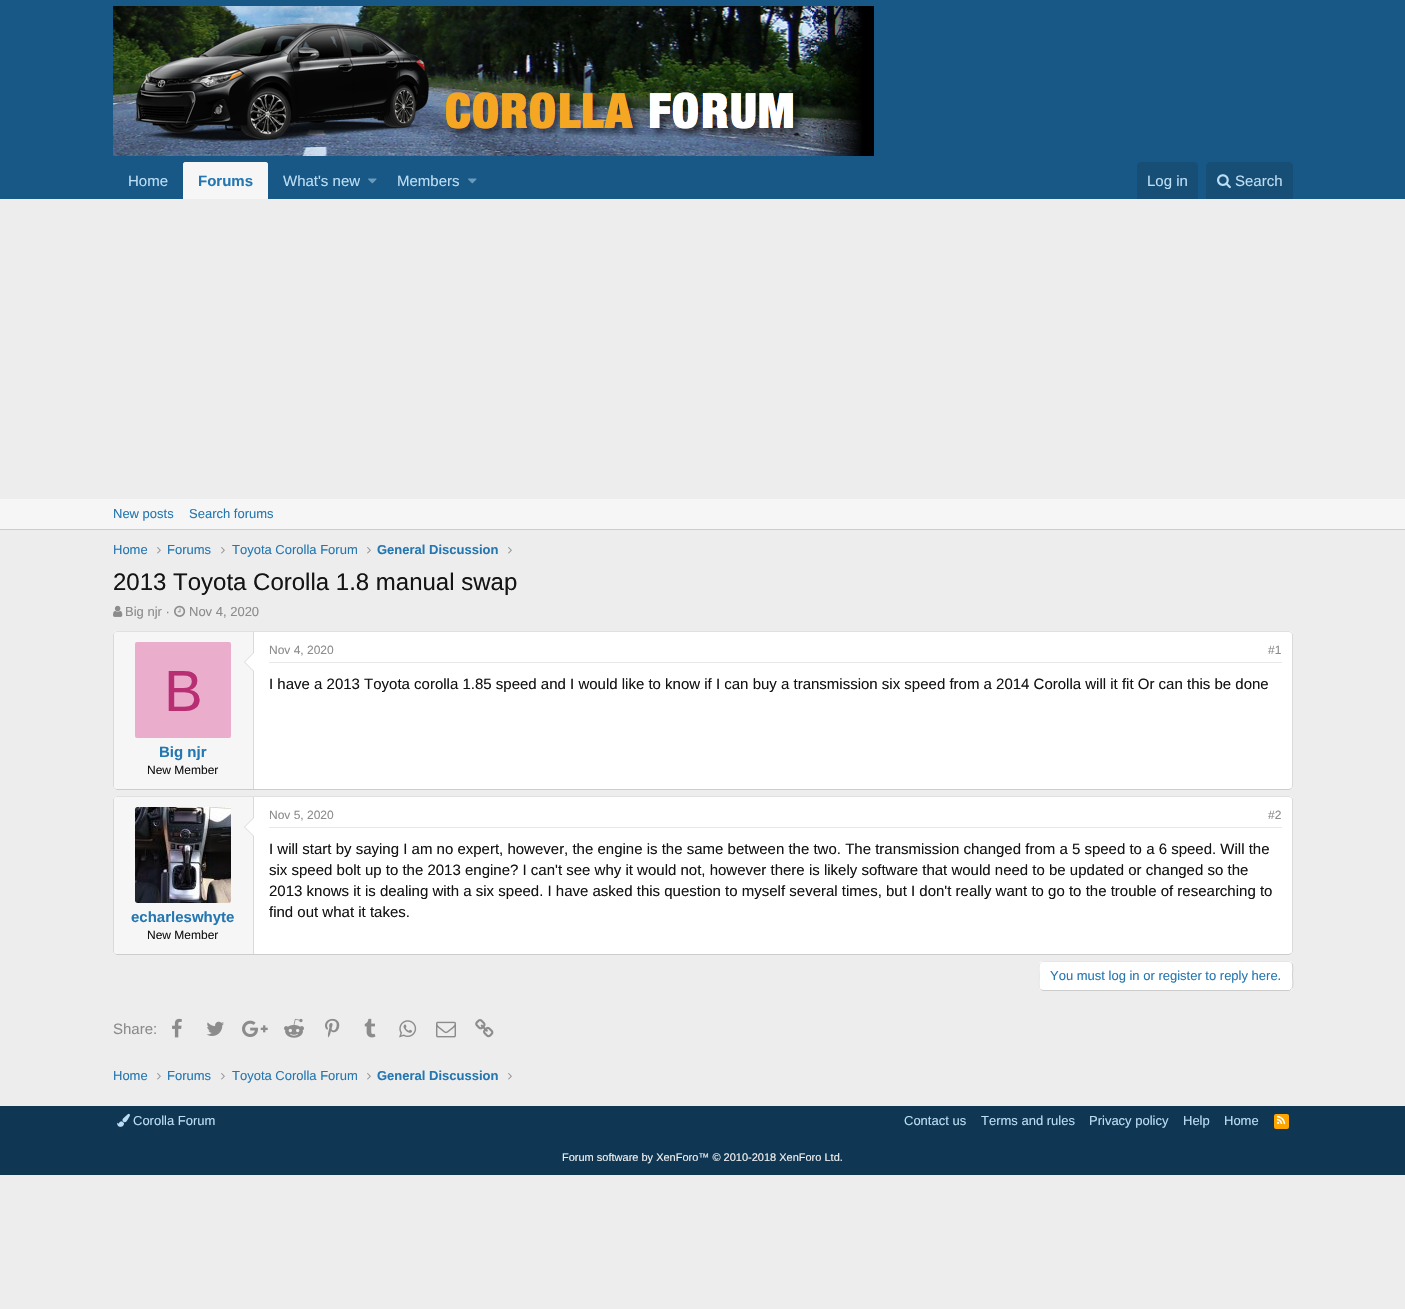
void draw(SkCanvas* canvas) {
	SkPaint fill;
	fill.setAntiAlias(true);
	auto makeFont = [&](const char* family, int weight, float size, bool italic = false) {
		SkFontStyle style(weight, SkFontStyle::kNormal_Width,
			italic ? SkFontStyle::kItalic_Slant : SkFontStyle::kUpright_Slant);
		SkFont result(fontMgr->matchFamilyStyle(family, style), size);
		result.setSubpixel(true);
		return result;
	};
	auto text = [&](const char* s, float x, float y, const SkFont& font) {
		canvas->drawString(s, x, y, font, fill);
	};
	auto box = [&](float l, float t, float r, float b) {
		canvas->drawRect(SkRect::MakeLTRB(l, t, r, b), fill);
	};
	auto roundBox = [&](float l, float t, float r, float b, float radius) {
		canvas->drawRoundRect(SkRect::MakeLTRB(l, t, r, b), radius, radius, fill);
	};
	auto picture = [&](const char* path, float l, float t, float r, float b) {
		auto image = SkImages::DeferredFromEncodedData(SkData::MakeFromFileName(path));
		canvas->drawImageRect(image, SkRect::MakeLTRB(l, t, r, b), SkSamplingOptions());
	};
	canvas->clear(0xFFEDEDED);
	fill.setColor(0xFF185886);
	box(0, 0, 1405, 199);
	picture("image0.png", 113, 6, 874, 156);
	fill.setColor(0xFFF6F6F6);
	canvas->drawPath(SkPathBuilder().moveTo(185, 162).lineTo(266, 162).cubicTo(267, 162, 268, 163, 268, 164).lineTo(268, 199).lineTo(183, 199).lineTo(183, 164).cubicTo(183, 163, 184, 162, 185, 162).close().detach(), fill);
	picture("image1.png", 368, 178, 377, 184);
	picture("image1.png", 468, 178, 477, 184);
	fill.setColor(0xFF174E75);
	canvas->drawPath(SkPathBuilder().moveTo(1141, 162).lineTo(1194, 162).cubicTo(1196, 162, 1198, 164, 1198, 166).lineTo(1198, 199).lineTo(1137, 199).lineTo(1137, 166).cubicTo(1137, 164, 1139, 162, 1141, 162).close().detach(), fill);
	canvas->drawPath(SkPathBuilder().moveTo(1210, 162).lineTo(1289, 162).cubicTo(1291, 162, 1293, 164, 1293, 166).lineTo(1293, 199).lineTo(1206, 199).lineTo(1206, 166).cubicTo(1206, 164, 1208, 162, 1210, 162).close().detach(), fill);
	picture("image2.png", 1217, 174, 1231, 189);
	fill.setColor(0xFFF6F6F6);
	box(0, 499, 1405, 529);
	fill.setColor(0xFFCCCCCC);
	box(0, 529, 1405, 530);
	picture("image3.png", 157, 547, 161, 554);
	picture("image3.png", 221, 547, 225, 554);
	picture("image3.png", 367, 547, 371, 554);
	picture("image3.png", 508, 547, 512, 554);
	picture("image4.png", 113, 605, 123, 617);
	picture("image5.png", 174, 605, 186, 617);
	fill.setColor(0xFFFFFFFF);
	roundBox(113, 631, 1293, 790, 4);
	fill.setStyle(SkPaint::kStroke_Style);
	fill.setStrokeWidth(1);
	fill.setColor(0xFFE0E0E0);
	canvas->drawPath(SkPathBuilder().moveTo(114.5f, 632.5f).lineTo(117, 631.5f).lineTo(1289, 631.5f).lineTo(1291.5f, 632.5f).detach(), fill);
	fill.setColor(0xFFD9D9D9);
	canvas->drawPath(SkPathBuilder().moveTo(1291.5f, 632.5f).cubicTo(1292, 633, 1292.5f, 634, 1292.5f, 635).lineTo(1292.5f, 786).cubicTo(1292.5f, 787, 1292, 788, 1291.5f, 788.5f).detach(), fill);
	fill.setColor(0xFFCCCCCC);
	canvas->drawPath(SkPathBuilder().moveTo(1291.5f, 788.5f).lineTo(1289, 789.5f).lineTo(117, 789.5f).lineTo(114.5f, 788.5f).detach(), fill);
	fill.setColor(0xFFD9D9D9);
	canvas->drawPath(SkPathBuilder().moveTo(114.5f, 788.5f).cubicTo(114, 788, 113.5f, 787, 113.5f, 786).lineTo(113.5f, 635).cubicTo(113.5f, 634, 114, 633, 114.5f, 632.5f).detach(), fill);
	fill.setStyle(SkPaint::kFill_Style);
	fill.setColor(0xFFF6F6F6);
	canvas->drawPath(SkPathBuilder().moveTo(117, 632).lineTo(254, 632).lineTo(254, 789).lineTo(117, 789).cubicTo(115.5f, 789, 114, 787.5f, 114, 786).lineTo(114, 635).cubicTo(114, 633.5f, 115.5f, 632, 117, 632).close().detach(), fill);
	fill.setColor(0xFFD9D9D9);
	box(253, 632, 254, 789);
	canvas->drawPath(SkPathBuilder().moveTo(254, 652).lineTo(254, 672).lineTo(244, 662).close().detach(), fill);
	fill.setColor(0xFFFFFFFF);
	canvas->drawPath(SkPathBuilder().moveTo(254, 653).lineTo(254, 671).lineTo(245, 662).close().detach(), fill);
	fill.setColor(0xFFEBADCC);
	roundBox(135, 642, 231, 738, 2);
	fill.setColor(0xFFE8E8E8);
	box(269, 662, 1282, 663);
	fill.setColor(0xFFFFFFFF);
	roundBox(113, 796, 1293, 955, 4);
	fill.setStyle(SkPaint::kStroke_Style);
	fill.setColor(0xFFE0E0E0);
	canvas->drawPath(SkPathBuilder().moveTo(114.5f, 797.5f).lineTo(117, 796.5f).lineTo(1289, 796.5f).lineTo(1291.5f, 797.5f).detach(), fill);
	fill.setColor(0xFFD9D9D9);
	canvas->drawPath(SkPathBuilder().moveTo(1291.5f, 797.5f).cubicTo(1292, 798, 1292.5f, 799, 1292.5f, 800).lineTo(1292.5f, 951).cubicTo(1292.5f, 952, 1292, 953, 1291.5f, 953.5f).detach(), fill);
	fill.setColor(0xFFCCCCCC);
	canvas->drawPath(SkPathBuilder().moveTo(1291.5f, 953.5f).lineTo(1289, 954.5f).lineTo(117, 954.5f).lineTo(114.5f, 953.5f).detach(), fill);
	fill.setColor(0xFFD9D9D9);
	canvas->drawPath(SkPathBuilder().moveTo(114.5f, 953.5f).cubicTo(114, 953, 113.5f, 952, 113.5f, 951).lineTo(113.5f, 800).cubicTo(113.5f, 799, 114, 798, 114.5f, 797.5f).detach(), fill);
	fill.setStyle(SkPaint::kFill_Style);
	fill.setColor(0xFFE8E8E8);
	box(269, 827, 1282, 828);
	fill.setColor(0xFFF6F6F6);
	canvas->drawPath(SkPathBuilder().moveTo(117, 797).lineTo(254, 797).lineTo(254, 954).lineTo(117, 954).cubicTo(115.5f, 954, 114, 952.5f, 114, 951).lineTo(114, 800).cubicTo(114, 798.5f, 115.5f, 797, 117, 797).close().detach(), fill);
	fill.setColor(0xFFD9D9D9);
	box(253, 797, 254, 954);
	picture("image6.png", 135, 807, 231, 903);
	canvas->drawPath(SkPathBuilder().moveTo(254, 817).lineTo(254, 837).lineTo(244, 827).close().detach(), fill);
	fill.setColor(0xFFFFFFFF);
	canvas->drawPath(SkPathBuilder().moveTo(254, 818).lineTo(254, 836).lineTo(245, 827).close().detach(), fill);
	roundBox(1039, 961, 1293, 991, 4);
	fill.setStyle(SkPaint::kStroke_Style);
	fill.setColor(0xFFCCCCCC);
	canvas->drawPath(SkPathBuilder().moveTo(1291.5f, 962.5f).cubicTo(1293.5f, 964.5f, 1292.5f, 973, 1292.5f, 976).cubicTo(1292.5f, 979, 1294, 987.5f, 1291, 989.5f).lineTo(1289.5f, 990.5f).lineTo(1043, 990.5f).lineTo(1040.5f, 989.5f).detach(), fill);
	fill.setColor(0xFFE6E6E6);
	canvas->drawPath(SkPathBuilder().moveTo(1040.5f, 989.5f).cubicTo(1038.5f, 987.5f, 1039.5f, 979, 1039.5f, 976).cubicTo(1039.5f, 973, 1038, 964.5f, 1041, 962.5f).lineTo(1042.5f, 961.5f).lineTo(1289, 961.5f).lineTo(1291.5f, 962.5f).detach(), fill);
	picture("image7.png", 172, 1018, 182, 1038);
	picture("image8.png", 206, 1021, 224, 1036);
	picture("image9.png", 242, 1020, 268, 1037);
	picture("image10.png", 284, 1018, 304, 1038);
	picture("image11.png", 325, 1018, 340, 1038);
	picture("image12.png", 364, 1018, 376, 1038);
	picture("image13.png", 399, 1020, 417, 1038);
	picture("image14.png", 436, 1021, 456, 1038);
	picture("image15.png", 475, 1019, 494, 1038);
	picture("image3.png", 157, 1073, 161, 1080);
	picture("image3.png", 221, 1073, 225, 1080);
	picture("image3.png", 367, 1073, 371, 1080);
	picture("image3.png", 508, 1073, 512, 1080);
	fill.setStyle(SkPaint::kFill_Style);
	fill.setColor(0xFF0F3652);
	box(0, 1106, 1405, 1175);
	picture("image16.png", 117, 1113, 130, 1127);
	fill.setColor(0xFFFFA500);
	roundBox(1274, 1114, 1289, 1129, 2);
	picture("image17.png", 1277, 1115, 1286, 1124);
	auto font1 = makeFont("Liberation Sans", 400, 15);
	fill.setColor(0xFFBCDEF5);
	text("Home", 128, 186, font1);
	auto font2 = makeFont("Liberation Sans", 700, 15);
	fill.setColor(0xFF2577B1);
	text("Forums", 198, 186, font2);
	fill.setColor(0xFFBCDEF5);
	text("What's new", 283, 186, font1);
	text("Members", 397, 186, font1);
	text("Log in", 1147, 186, font1);
	text("Search", 1235, 186, font1);
	auto font3 = makeFont("Liberation Sans", 400, 13);
	fill.setColor(0xFF2577B1);
	text("New posts", 113, 518, font3);
	text("Search forums", 189, 518, font3);
	text("Home", 113, 554, font3);
	text("Forums", 167, 554, font3);
	text("Toyota Corolla Forum", 232, 554, font3);
	auto font4 = makeFont("Liberation Sans", 700, 13);
	text("General Discussion", 377, 554, font4);
	auto font5 = makeFont("Liberation Sans", 400, 24);
	fill.setColor(0xFF141414);
	text("2013 Toyota Corolla 1.8 manual swap", 113, 590, font5);
	fill.setColor(0xFF8C8C8C);
	text("Big njr ·", 125, 616, font3);
	text("Nov 4, 2020", 189, 616, font3);
	auto font6 = makeFont("Liberation Sans", 400, 58);
	fill.setColor(0xFFB82E73);
	text("B", 164, 711, font6);
	fill.setColor(0xFF2577B1);
	text("Big njr", 159, 757, font2);
	auto font7 = makeFont("Liberation Sans", 400, 12);
	fill.setColor(0xFF141414);
	text("New Member", 147, 774, font7);
	fill.setColor(0xFF8C8C8C);
	text("Nov 4, 2020", 269, 654, font7);
	text("#1", 1268, 654, font7);
	fill.setColor(0xFF141414);
	text("I have a 2013 Toyota corolla 1.85 speed and I would like to know if I can buy a transmission six speed from a 2014 Corolla will it fit Or can this be done", 269, 689, font1);
	fill.setColor(0xFF8C8C8C);
	text("Nov 5, 2020", 269, 819, font7);
	text("#2", 1268, 819, font7);
	fill.setColor(0xFF141414);
	text("I will start by saying I am no expert, however, the engine is the same between the two. The transmission changed from a 5 speed to a 6 speed. Will the", 269, 854, font1);
	text("six speed bolt up to the 2013 engine? I can't see why it would not, however there is likely software that would need to be updated or changed so the", 269, 875, font1);
	text("2013 knows it is dealing with a six speed. I have asked this question to myself several times, but I don't really want to go to the trouble of researching to", 269, 896, font1);
	text("find out what it takes.", 269, 917, font1);
	fill.setColor(0xFF2577B1);
	text("echarleswhyte", 131, 922, font2);
	fill.setColor(0xFF141414);
	text("New Member", 147, 939, font7);
	fill.setColor(0xFF2577B1);
	text("You must log in or register to reply here.", 1050, 980, font3);
	fill.setColor(0xFF8C8C8C);
	text("Share:", 113, 1034, font1);
	fill.setColor(0xFF2577B1);
	text("Home", 113, 1080, font3);
	text("Forums", 167, 1080, font3);
	text("Toyota Corolla Forum", 232, 1080, font3);
	text("General Discussion", 377, 1080, font4);
	fill.setColor(0xFFBCDEF5);
	text("Corolla Forum", 133, 1125, font3);
	text("Contact us", 904, 1125, font3);
	text("Terms and rules", 981, 1125, font3);
	text("Privacy policy", 1089, 1125, font3);
	text("Help", 1183, 1125, font3);
	text("Home", 1224, 1125, font3);
	auto font8 = makeFont("Liberation Sans", 400, 11);
	fill.setColor(0xFFF0F0F0);
	text("Forum software by XenForo™ © 2010-2018 XenForo Ltd.", 562, 1161, font8);
}
